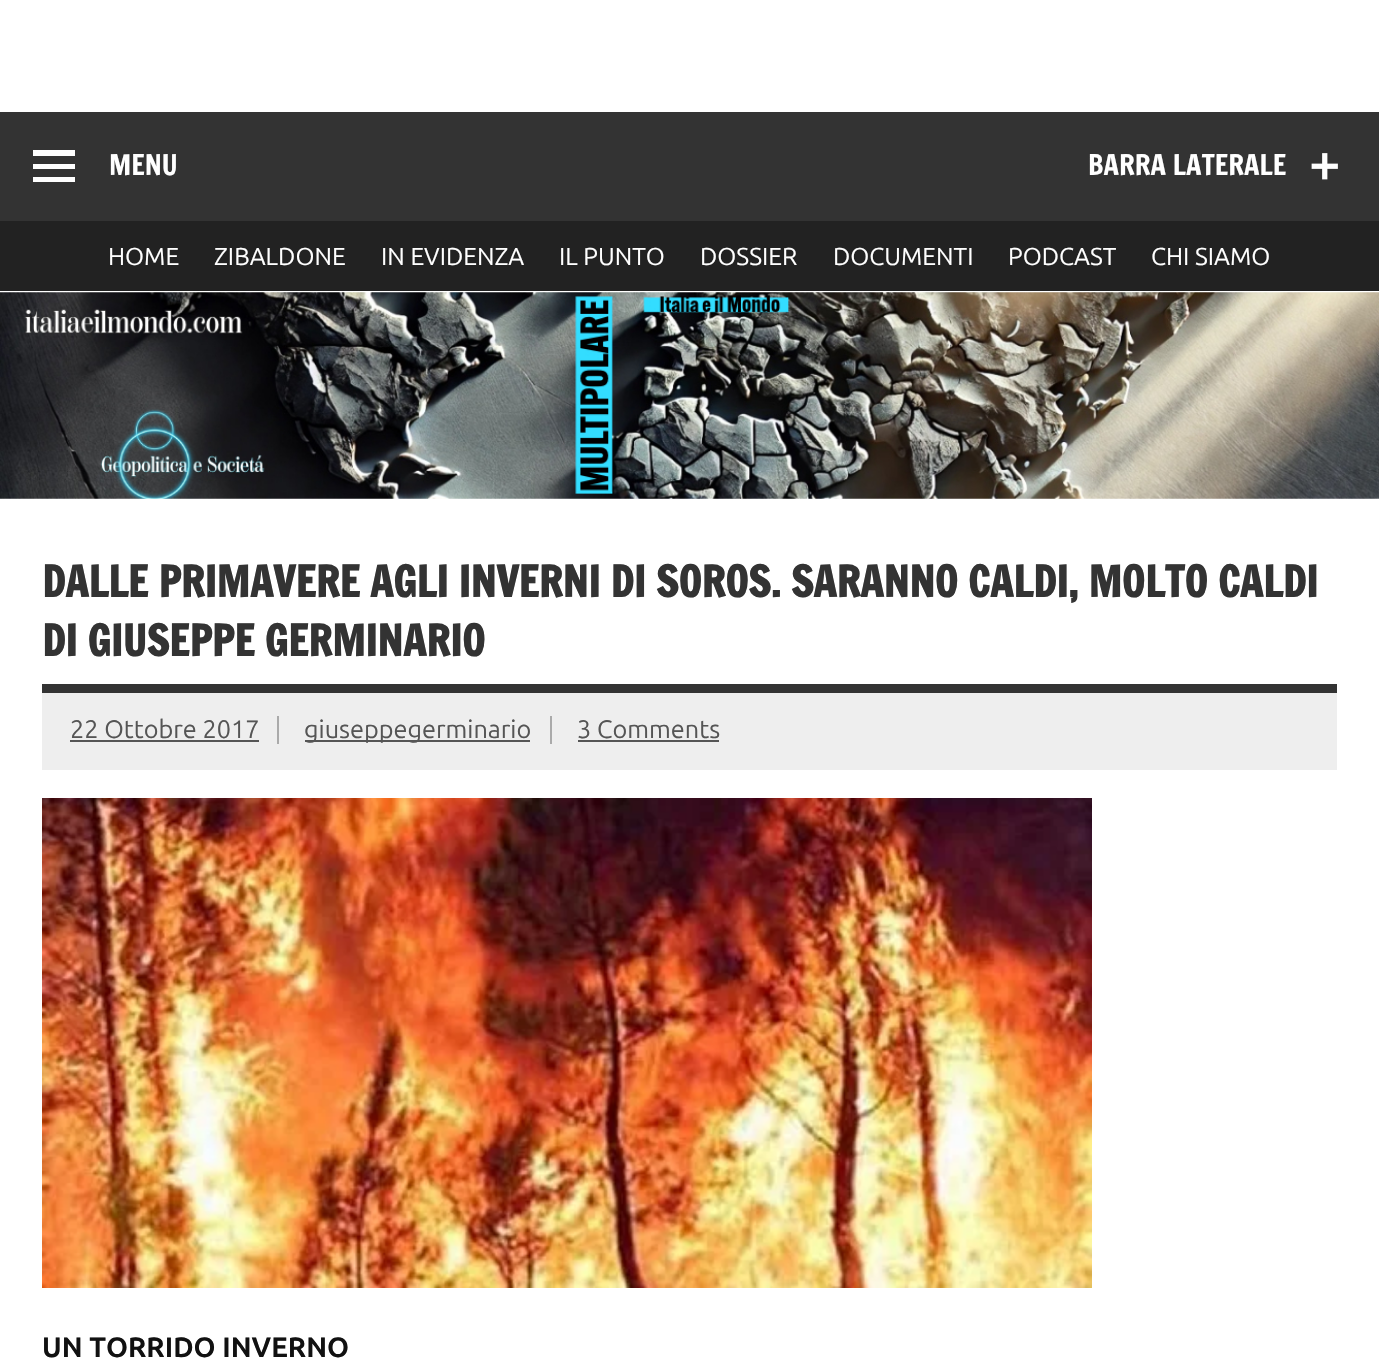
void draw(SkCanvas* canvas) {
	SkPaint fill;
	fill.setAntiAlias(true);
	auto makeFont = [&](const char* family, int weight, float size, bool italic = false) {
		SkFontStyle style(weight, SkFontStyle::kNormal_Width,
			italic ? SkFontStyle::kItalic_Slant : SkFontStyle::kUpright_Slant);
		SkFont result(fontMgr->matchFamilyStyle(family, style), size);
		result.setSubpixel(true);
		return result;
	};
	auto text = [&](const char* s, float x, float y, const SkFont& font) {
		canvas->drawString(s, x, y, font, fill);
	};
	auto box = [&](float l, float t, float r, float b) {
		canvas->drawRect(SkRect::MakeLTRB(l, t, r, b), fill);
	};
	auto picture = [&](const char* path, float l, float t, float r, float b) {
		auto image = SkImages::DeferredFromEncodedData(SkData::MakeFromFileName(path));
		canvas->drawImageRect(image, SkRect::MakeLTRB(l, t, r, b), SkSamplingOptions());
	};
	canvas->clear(0xFFFFFFFF);
	fill.setColor(0xFF333333);
	box(0, 112, 1379, 221);
	fill.setColor(0xFFFFFFFF);
	canvas->drawPath(SkPathBuilder().moveTo(33, 182).lineTo(33, 177).lineTo(75, 177).lineTo(75, 182).close().moveTo(33, 150).lineTo(75, 150).lineTo(75, 156).lineTo(33, 156).close().moveTo(33, 169).lineTo(33, 164).lineTo(75, 164).lineTo(75, 169).close().detach(), fill);
	fill.setColor(0xFF222222);
	box(0, 221, 1379, 291);
	picture("image0.png", 1311, 153, 1338, 180);
	picture("image1.png", 0, 292, 1379, 499);
	fill.setColor(0xFF333333);
	box(42, 684, 1337, 693);
	fill.setColor(0xFFEEEEEE);
	box(42, 693, 1337, 770);
	fill.setColor(0xFFAAAAAA);
	box(277, 716, 279, 744);
	fill.setColor(0xFF555555);
	box(70, 740, 259, 742);
	fill.setColor(0xFFAAAAAA);
	box(550, 716, 552, 744);
	fill.setColor(0xFF555555);
	box(305, 740, 530, 742);
	box(578, 740, 719, 742);
	picture("image2.png", 42, 798, 1092, 1288);
	auto font1 = makeFont("Francois One", 400, 28);
	fill.setColor(0xFFFFFFFF);
	text("MENU", 109, 175, font1);
	auto font2 = makeFont("Ubuntu", 400, 24.5f);
	text("HOME", 108, 265, font2);
	text("ZIBALDONE", 214, 265, font2);
	text("IN EVIDENZA", 381, 265, font2);
	text("IL PUNTO", 559, 265, font2);
	text("DOSSIER", 700, 265, font2);
	text("DOCUMENTI", 833, 265, font2);
	text("PODCAST", 1008, 265, font2);
	text("CHI SIAMO", 1151, 265, font2);
	text("BARRA LATERALE", 1088, 175, font1);
	auto font3 = makeFont("Francois One", 700, 42);
	fill.setColor(0xFF333333);
	text("DALLE PRIMAVERE AGLI INVERNI DI SOROS. SARANNO CALDI, MOLTO CALDI", 42, 597, font3);
	text("DI GIUSEPPE GERMINARIO", 42, 656, font3);
	auto font4 = makeFont("Ubuntu", 400, 25.25f);
	fill.setColor(0xFF555555);
	text("22 Ottobre 2017", 70, 738, font4);
	text("giuseppegerminario", 304, 738, font4);
	text("3 Comments", 577, 738, font4);
	auto font5 = makeFont("Ubuntu", 700, 28);
	fill.setColor(0xFF111111);
	text("UN TORRIDO INVERNO", 42, 1357, font5);
}
